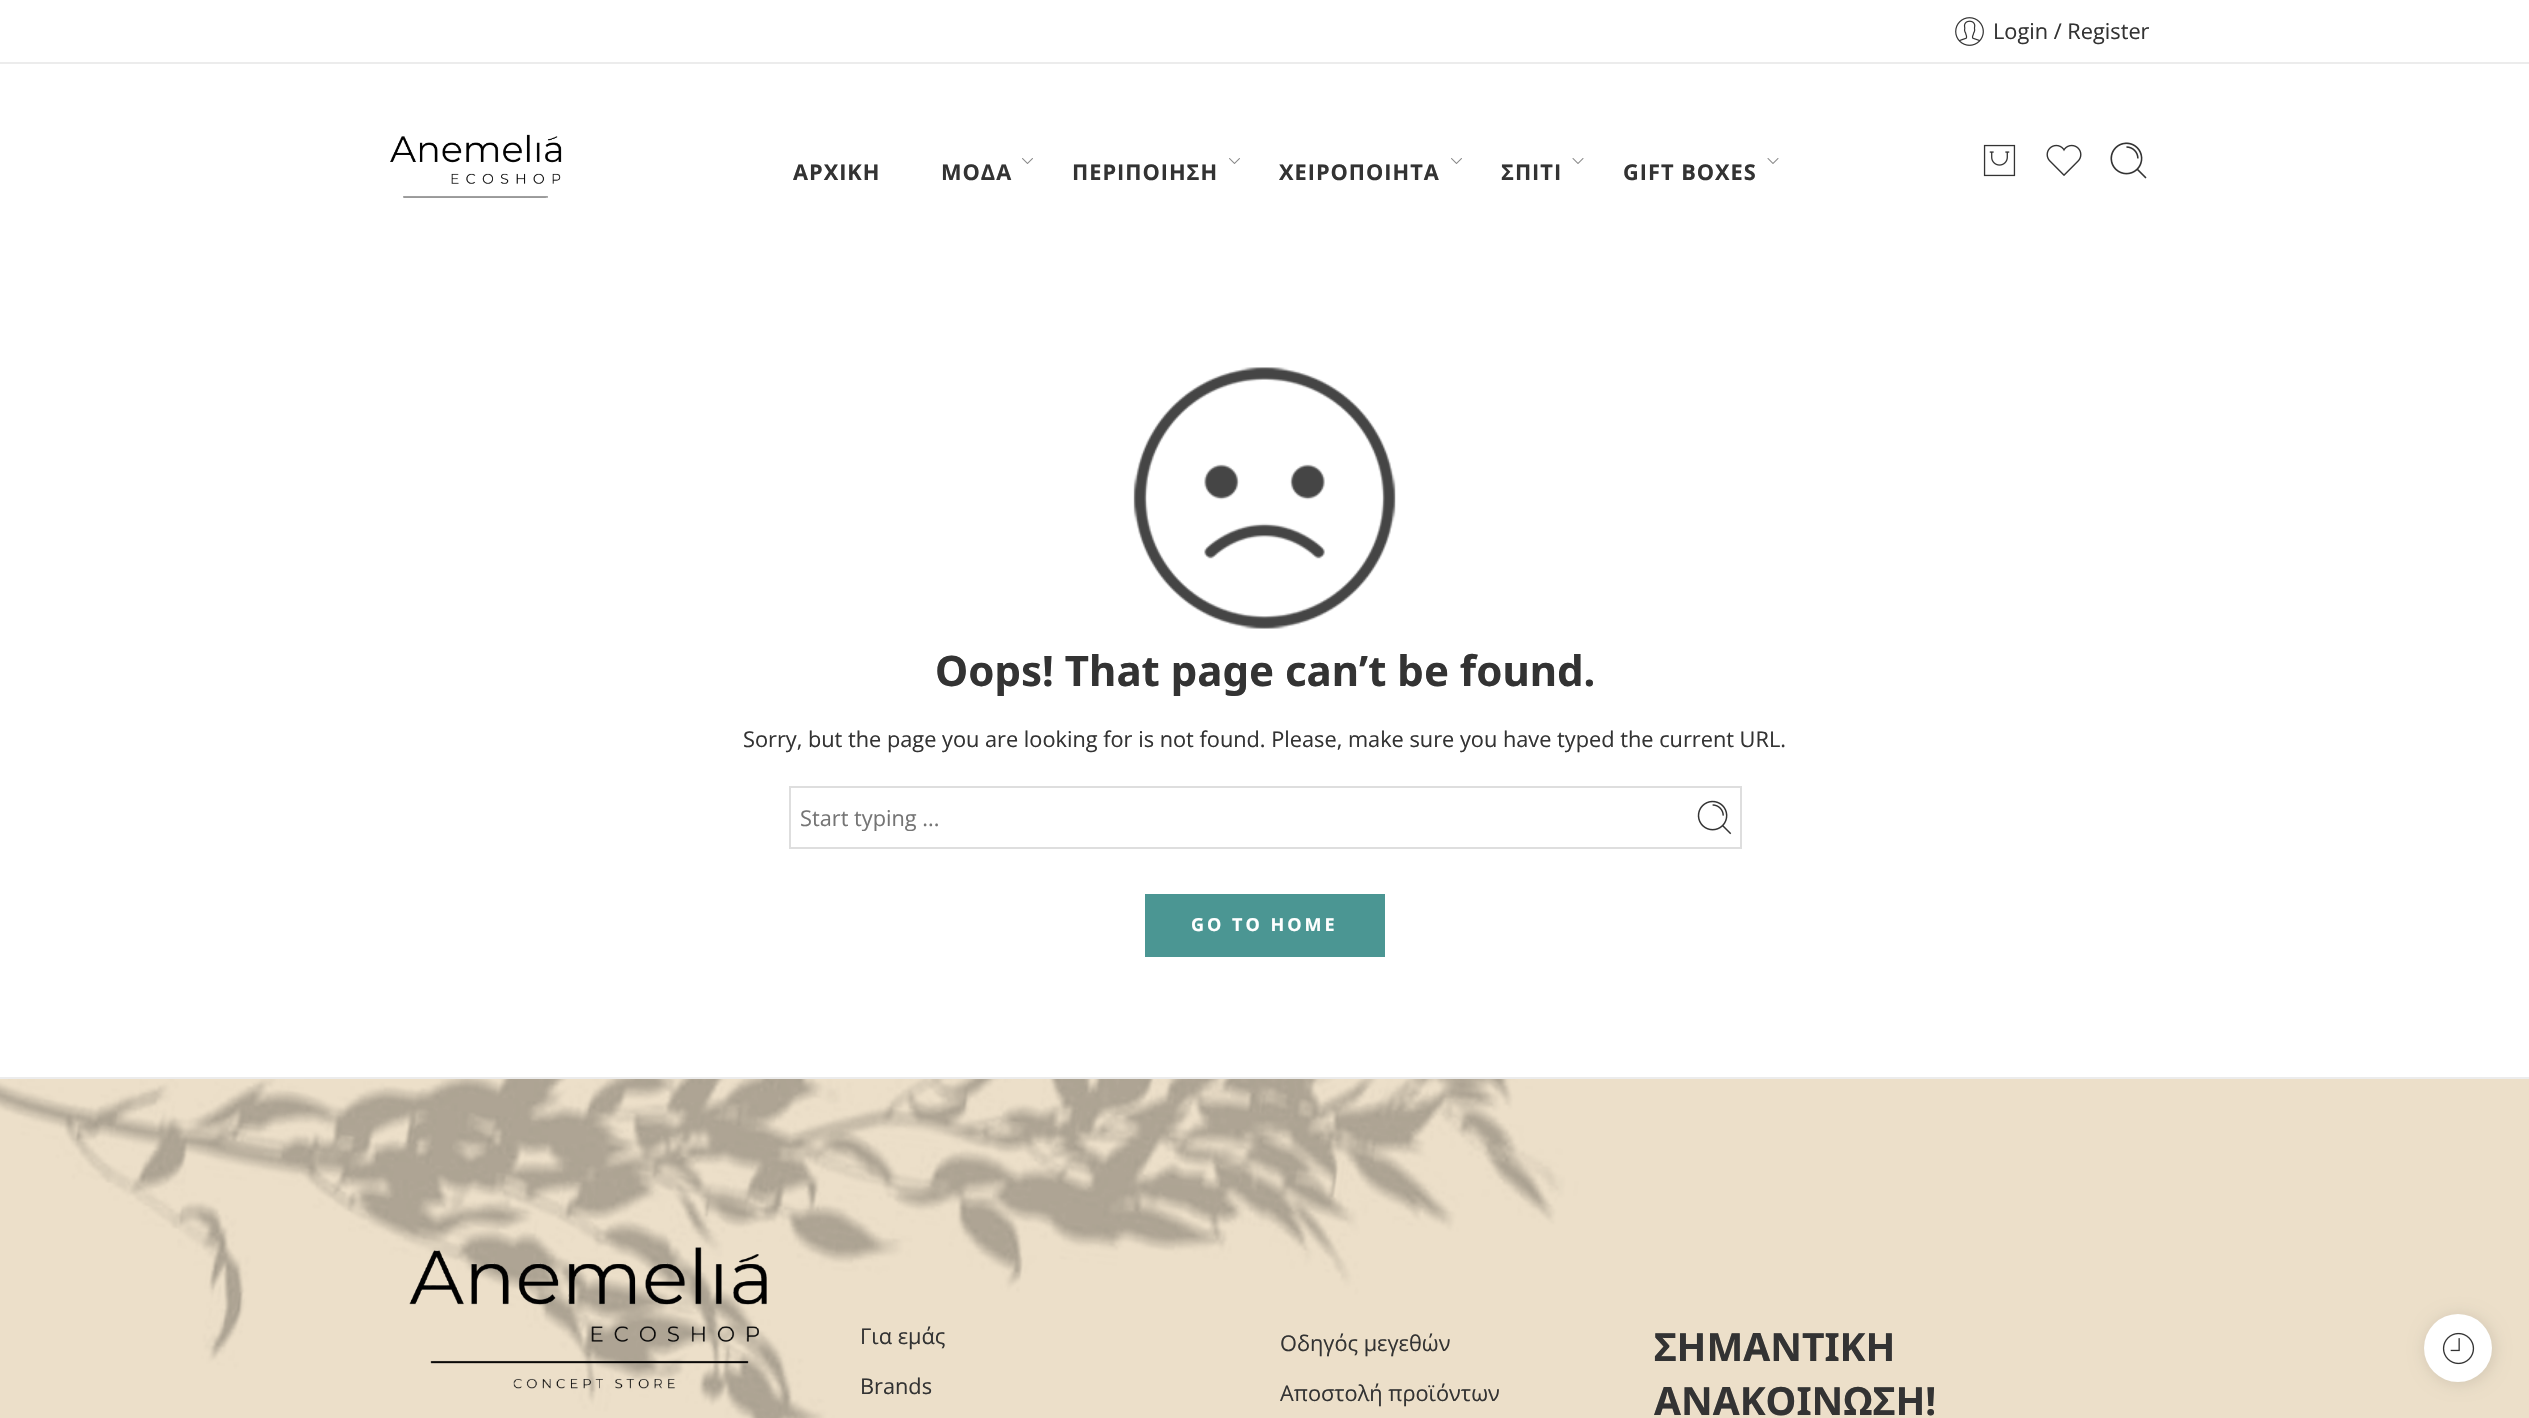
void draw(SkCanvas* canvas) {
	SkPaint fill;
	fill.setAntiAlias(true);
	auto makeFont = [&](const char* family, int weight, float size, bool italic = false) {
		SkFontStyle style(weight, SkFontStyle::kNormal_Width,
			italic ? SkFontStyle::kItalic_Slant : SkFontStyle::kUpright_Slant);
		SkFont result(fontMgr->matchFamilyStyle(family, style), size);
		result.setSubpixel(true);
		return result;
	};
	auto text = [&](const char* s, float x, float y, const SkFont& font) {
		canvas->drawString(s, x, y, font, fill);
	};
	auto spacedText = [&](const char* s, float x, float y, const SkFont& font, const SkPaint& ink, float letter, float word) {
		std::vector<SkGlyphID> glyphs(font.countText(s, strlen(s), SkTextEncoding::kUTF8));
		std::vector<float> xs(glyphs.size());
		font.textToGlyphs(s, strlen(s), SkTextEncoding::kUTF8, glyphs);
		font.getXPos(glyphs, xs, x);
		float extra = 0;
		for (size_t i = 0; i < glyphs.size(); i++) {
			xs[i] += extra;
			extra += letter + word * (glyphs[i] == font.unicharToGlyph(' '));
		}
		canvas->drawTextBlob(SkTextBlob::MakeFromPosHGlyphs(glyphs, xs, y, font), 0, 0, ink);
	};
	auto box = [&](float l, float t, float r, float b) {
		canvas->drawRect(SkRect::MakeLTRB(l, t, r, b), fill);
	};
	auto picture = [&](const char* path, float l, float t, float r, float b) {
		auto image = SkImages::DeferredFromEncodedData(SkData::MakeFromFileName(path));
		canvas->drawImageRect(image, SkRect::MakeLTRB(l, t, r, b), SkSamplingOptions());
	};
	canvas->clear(0xFFFFFFFF);
	fill.setColor(0xFFECECEC);
	box(0, 62, 2529, 64);
	picture("image0.png", 1955, 17, 1984, 46);
	picture("image1.png", 390, 134, 562, 198);
	picture("image2.png", 1022, 158, 1033, 164);
	picture("image2.png", 1229, 158, 1240, 164);
	picture("image2.png", 1451, 158, 1462, 164);
	picture("image3.png", 1572, 158, 1584, 164);
	picture("image3.png", 1767, 158, 1779, 164);
	picture("image4.png", 1983, 144, 2016, 177);
	picture("image5.png", 2046, 144, 2082, 176);
	picture("image6.png", 2110, 142, 2147, 179);
	picture("image7.png", 1133, 367, 1396, 629);
	fill.setStyle(SkPaint::kStroke_Style);
	fill.setStrokeWidth(2);
	fill.setColor(0xFFDEDEDE);
	canvas->drawRect(SkRect::MakeLTRB(790, 787, 1741, 848), fill);
	picture("image8.png", 1697, 800, 1732, 835);
	fill.setStyle(SkPaint::kFill_Style);
	fill.setColor(0xFF4B9693);
	box(1145, 894, 1385, 957);
	picture("image9.png", 0, 1079, 2529, 1418);
	fill.setColor(0xFFECECEC);
	box(0, 1077, 2529, 1079);
	picture("image10.png", 409, 1247, 767, 1389);
	fill.setColor(0x1A000000);
	fill.setMaskFilter(SkMaskFilter::MakeBlur(kNormal_SkBlurStyle, 7.5f));
	canvas->drawRoundRect(SkRect::MakeLTRB(2424, 1314, 2495, 1385), 35.5f, 35.5f, fill);
	fill.setMaskFilter(nullptr);
	fill.setColor(0xFFFFFFFF);
	canvas->drawCircle(2458, 1348, 34, fill);
	picture("image11.png", 2442, 1332, 2475, 1365);
	auto font1 = makeFont("Open Sans", 400, 21.75f);
	fill.setColor(0xFF333333);
	text("Login / Register", 1993, 39, font1);
	auto font2 = makeFont("Open Sans", 700, 21.75f);
	spacedText("ΑΡΧΙΚΗ", 793, 180, font2, fill, 1, 0);
	spacedText("ΜΟΔΑ", 941, 180, font2, fill, 1, 0);
	spacedText("ΠΕΡΙΠΟΙΗΣΗ", 1072, 180, font2, fill, 1, 0);
	spacedText("ΧΕΙΡΟΠΟΙΗΤΑ", 1279, 180, font2, fill, 1, 0);
	spacedText("ΣΠΙΤΙ", 1501, 180, font2, fill, 1, 0);
	spacedText("GIFT BOXES", 1623, 180, font2, fill, 1, 0);
	auto font3 = makeFont("Noto Sans", 700, 42);
	text("Oops! That page can’t be found.", 935, 686, font3);
	text("Sorry, but the page you are looking for is not found. Please, make sure you have typed the current URL.", 743, 747, font1);
	canvas->save();
	canvas->clipRect(SkRect::MakeLTRB(801, 803, 1730, 831));
	fill.setColor(0xFF757575);
	text("Start typing ...", 800, 826, font1);
	canvas->restore();
	auto font4 = makeFont("Open Sans", 700, 18);
	fill.setColor(0xFFFFFFFF);
	spacedText("GO TO HOME", 1191, 931, font4, fill, 3, 0);
	fill.setColor(0xFF333333);
	text("Για εμάς", 860, 1344, font1);
	text("Brands", 860, 1394, font1);
	text("Οδηγός μεγεθών", 1280, 1351, font1);
	text("Αποστολή προϊόντων", 1280, 1401, font1);
	auto font5 = makeFont("Noto Sans", 700, 39);
	text("ΣΗΜΑΝΤΙΚΗ", 1654, 1361, font5);
	text("ΑΝΑΚΟΙΝΩΣΗ!", 1654, 1415, font5);
}
